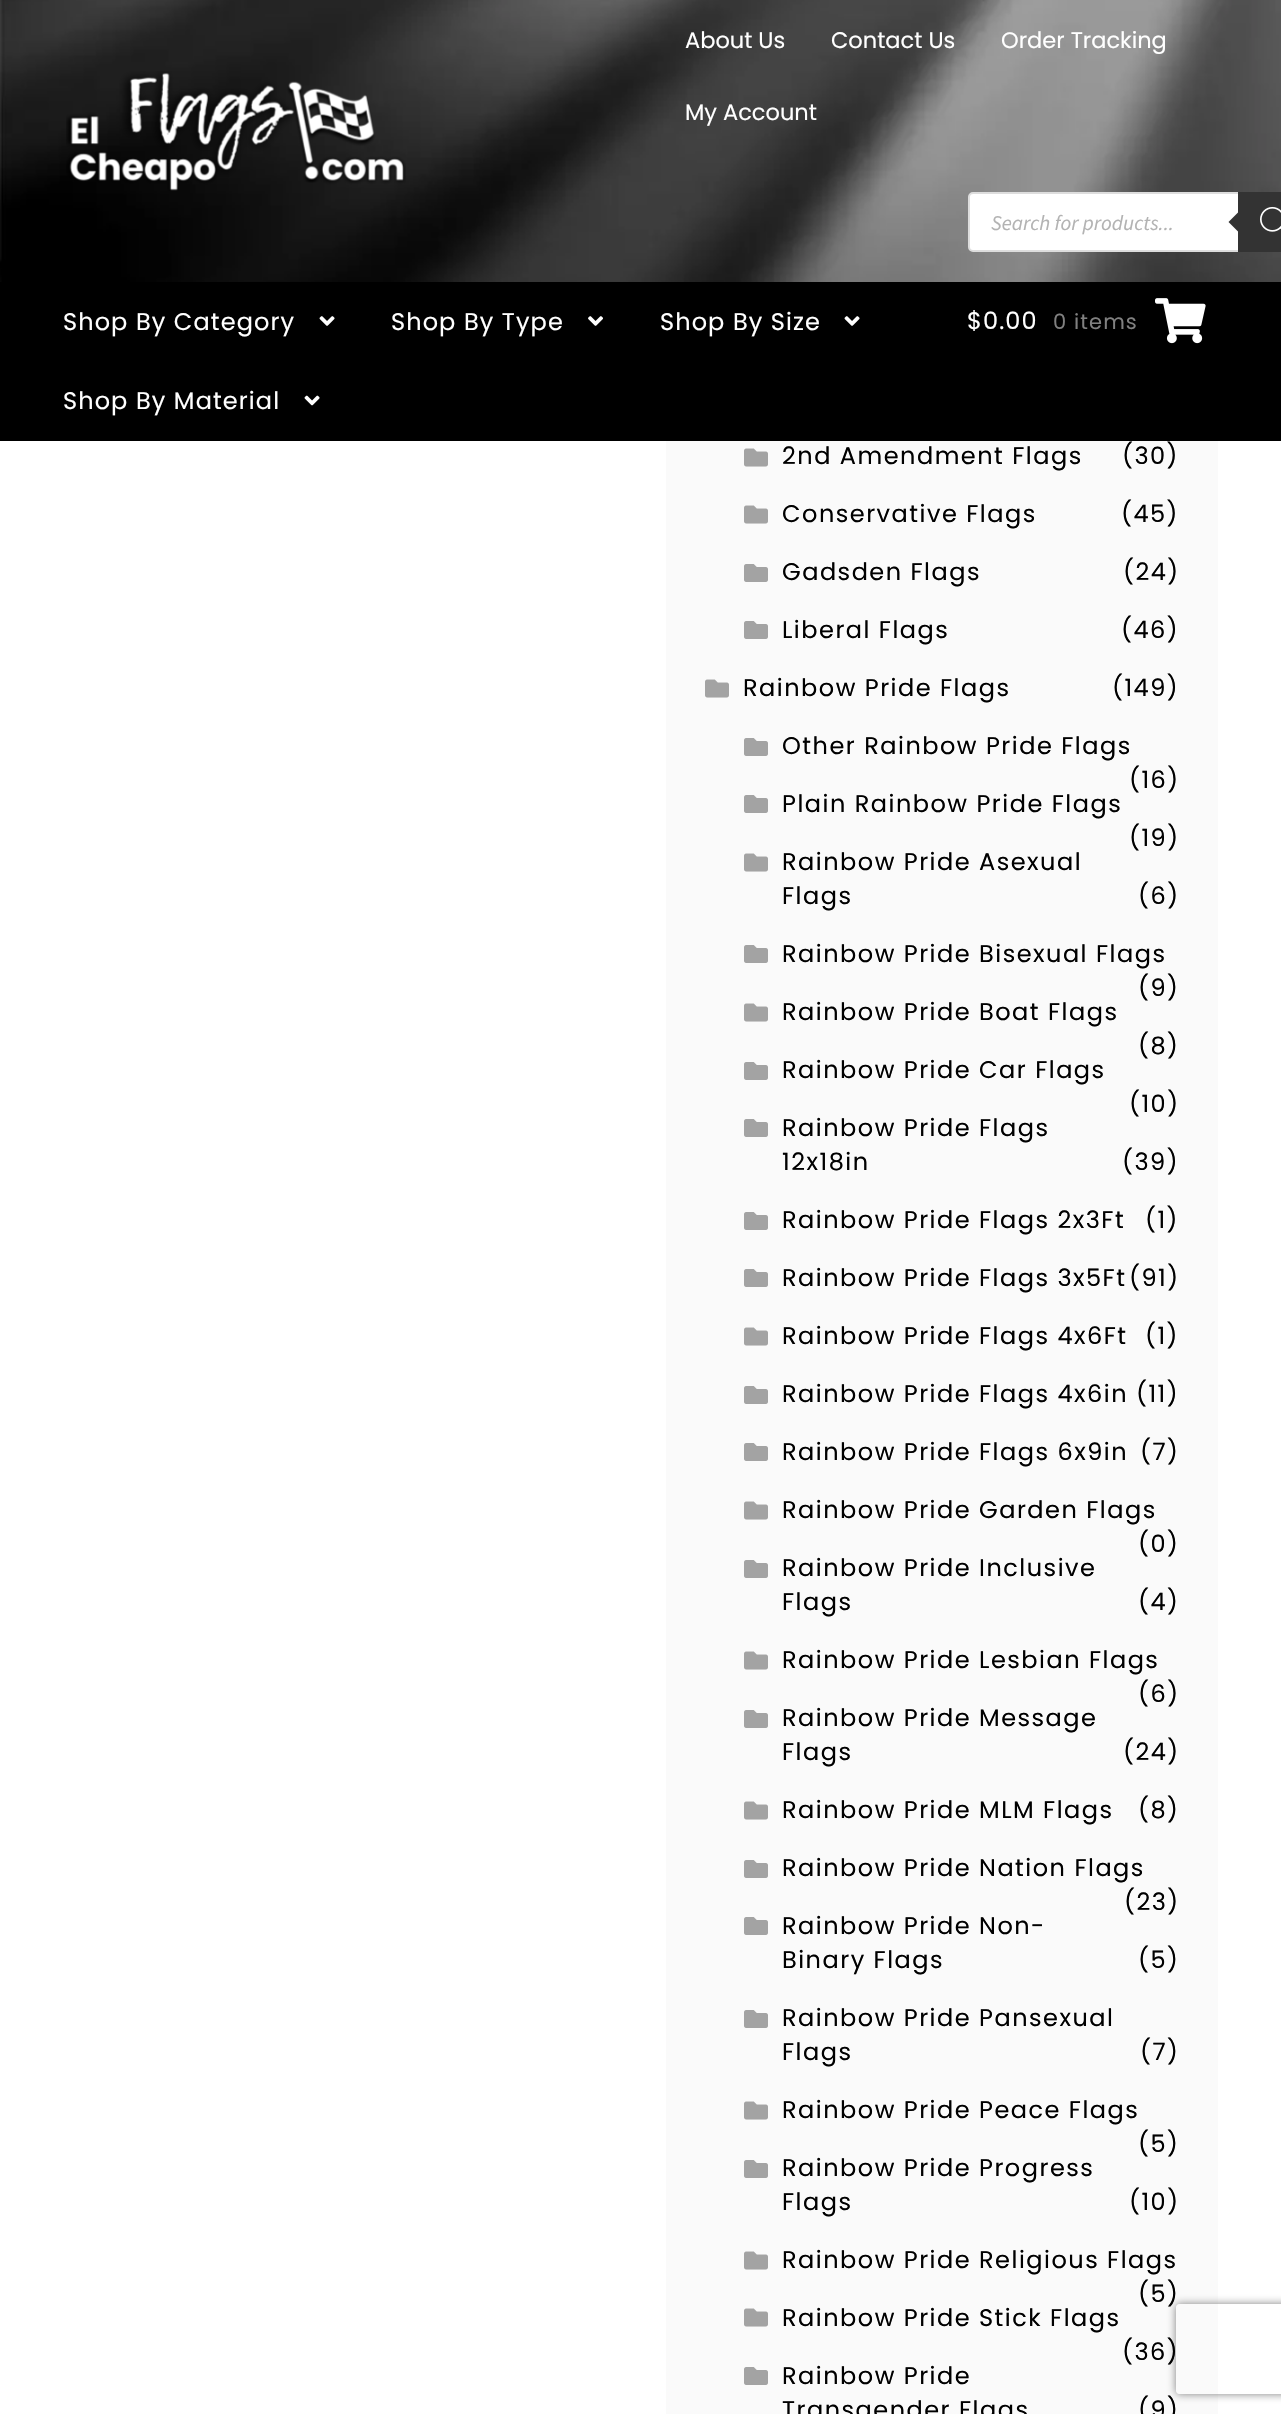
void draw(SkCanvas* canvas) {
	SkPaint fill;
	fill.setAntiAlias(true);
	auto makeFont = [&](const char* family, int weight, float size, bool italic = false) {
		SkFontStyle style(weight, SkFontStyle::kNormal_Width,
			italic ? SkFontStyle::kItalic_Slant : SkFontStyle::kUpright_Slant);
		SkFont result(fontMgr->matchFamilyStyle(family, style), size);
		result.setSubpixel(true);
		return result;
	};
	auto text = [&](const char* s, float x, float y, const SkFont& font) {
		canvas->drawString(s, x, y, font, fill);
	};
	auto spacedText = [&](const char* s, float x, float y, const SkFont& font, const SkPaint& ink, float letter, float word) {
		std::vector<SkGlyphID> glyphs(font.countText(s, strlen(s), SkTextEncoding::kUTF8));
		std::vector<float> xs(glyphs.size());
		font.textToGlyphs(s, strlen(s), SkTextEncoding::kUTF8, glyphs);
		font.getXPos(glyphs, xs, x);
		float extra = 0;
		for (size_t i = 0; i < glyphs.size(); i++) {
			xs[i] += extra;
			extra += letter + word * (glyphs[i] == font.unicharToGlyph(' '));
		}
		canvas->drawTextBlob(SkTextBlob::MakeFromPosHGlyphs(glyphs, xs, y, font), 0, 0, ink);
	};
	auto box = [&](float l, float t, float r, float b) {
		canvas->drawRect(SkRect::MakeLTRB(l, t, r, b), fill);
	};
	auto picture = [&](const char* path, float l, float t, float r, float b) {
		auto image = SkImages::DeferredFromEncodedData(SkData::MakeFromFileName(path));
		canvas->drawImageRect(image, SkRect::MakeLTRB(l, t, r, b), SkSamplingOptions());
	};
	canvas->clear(0xFFFFFFFF);
	picture("image0.png", 0, 0, 1281, 282);
	picture("image1.png", 66, 71, 406, 191);
	fill.setColor(0xFFFFFFFF);
	canvas->drawRoundRect(SkRect::MakeLTRB(969, 193, 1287, 251), 4, 4, fill);
	fill.setStyle(SkPaint::kStroke_Style);
	fill.setStrokeWidth(2);
	fill.setColor(0xFFDDDDDD);
	canvas->drawRoundRect(SkRect::MakeLTRB(969, 193, 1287, 251), 4, 4, fill);
	fill.setStyle(SkPaint::kFill_Style);
	fill.setColor(0xFF333333);
	box(1238, 192, 1281, 252);
	canvas->drawPath(SkPathBuilder().moveTo(1240.5f, 210).lineTo(1240.5f, 234).lineTo(1228.5f, 222).close().detach(), fill);
	picture("image2.png", 1260, 206, 1281, 232);
	fill.setColor(0xFF000000);
	box(0, 282, 1281, 441);
	picture("image3.png", 319, 316, 335, 326);
	picture("image4.png", 588, 316, 603, 326);
	picture("image3.png", 844, 316, 860, 326);
	picture("image5.png", 304, 395, 320, 406);
	picture("image6.png", 1155, 298, 1206, 344);
	fill.setColor(0xFFFAFAFA);
	box(666, 441, 1218, 2414);
	picture("image7.png", 744, 448, 768, 467);
	picture("image7.png", 744, 505, 768, 524);
	picture("image8.png", 744, 564, 768, 582);
	picture("image8.png", 744, 621, 768, 639);
	picture("image7.png", 705, 679, 729, 698);
	picture("image8.png", 744, 738, 768, 756);
	picture("image8.png", 744, 795, 768, 813);
	picture("image7.png", 744, 853, 768, 872);
	picture("image8.png", 744, 945, 768, 963);
	picture("image7.png", 744, 1003, 768, 1022);
	picture("image8.png", 744, 1062, 768, 1080);
	picture("image8.png", 744, 1119, 768, 1137);
	picture("image8.png", 744, 1212, 768, 1230);
	picture("image8.png", 744, 1269, 768, 1287);
	picture("image7.png", 744, 1327, 768, 1346);
	picture("image8.png", 744, 1386, 768, 1404);
	picture("image8.png", 744, 1443, 768, 1461);
	picture("image7.png", 744, 1501, 768, 1520);
	picture("image8.png", 744, 1560, 768, 1578);
	picture("image7.png", 744, 1651, 768, 1670);
	picture("image8.png", 744, 1710, 768, 1728);
	picture("image7.png", 744, 1801, 768, 1820);
	picture("image8.png", 744, 1860, 768, 1878);
	picture("image8.png", 744, 1917, 768, 1935);
	picture("image8.png", 744, 2010, 768, 2028);
	picture("image7.png", 744, 2101, 768, 2120);
	picture("image8.png", 744, 2160, 768, 2178);
	picture("image7.png", 744, 2251, 768, 2270);
	picture("image7.png", 744, 2308, 768, 2327);
	picture("image8.png", 744, 2367, 768, 2385);
	canvas->save();
	canvas->clipPath(SkPathBuilder(SkPathFillType::kEvenOdd).moveTo(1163, 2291).lineTo(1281, 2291).lineTo(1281, 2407).lineTo(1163, 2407).close().moveTo(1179, 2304).lineTo(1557, 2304).cubicTo(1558.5f, 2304, 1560, 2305.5f, 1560, 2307).lineTo(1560, 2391).cubicTo(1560, 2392.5f, 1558.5f, 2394, 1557, 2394).lineTo(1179, 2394).cubicTo(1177.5f, 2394, 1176, 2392.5f, 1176, 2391).lineTo(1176, 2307).cubicTo(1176, 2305.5f, 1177.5f, 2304, 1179, 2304).close().detach(), true);
	fill.setColor(0xFF808080);
	fill.setMaskFilter(SkMaskFilter::MakeBlur(kNormal_SkBlurStyle, 4));
	canvas->drawRoundRect(SkRect::MakeLTRB(1176, 2304, 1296, 2394), 3, 3, fill);
	fill.setMaskFilter(nullptr);
	canvas->restore();
	auto font1 = makeFont("Poppins", 400, 22.5f);
	fill.setColor(0xFFFFFFFF);
	text("About Us", 685, 48, font1);
	text("Contact Us", 831, 48, font1);
	text("Order Tracking", 1001, 48, font1);
	text("My Account", 685, 120, font1);
	auto font2 = makeFont("Source Sans Pro", 400, 21, true);
	fill.setColor(0xFFB3B3B3);
	text("Search for products...", 991, 230, font2);
	auto font3 = makeFont("Poppins", 400, 24);
	fill.setColor(0xFFFFFFFF);
	spacedText("Shop By Category", 63, 330, font3, fill, 1.1f, 0);
	spacedText("Shop By Type", 391, 330, font3, fill, 1.1f, 0);
	spacedText("Shop By Size", 660, 330, font3, fill, 1.1f, 0);
	spacedText("Shop By Material", 63, 409, font3, fill, 1.1f, 0);
	spacedText("$0.00", 967, 329, font3, fill, 1.1f, 0);
	auto font4 = makeFont("Poppins", 400, 21);
	fill.setColor(0xFF808080);
	spacedText("0 items", 1053, 329, font4, fill, 1.1f, 0);
	fill.setColor(0xFF000000);
	spacedText("2nd Amendment Flags", 782, 464, font3, fill, 1.5f, 0);
	spacedText("(30)", 1122, 464, font3, fill, 1.5f, 0);
	spacedText("Conservative Flags", 782, 522, font3, fill, 1.5f, 0);
	spacedText("(45)", 1121, 522, font3, fill, 1.5f, 0);
	spacedText("Gadsden Flags", 782, 580, font3, fill, 1.5f, 0);
	spacedText("(24)", 1123, 580, font3, fill, 1.5f, 0);
	spacedText("Liberal Flags", 782, 638, font3, fill, 1.5f, 0);
	spacedText("(46)", 1121, 638, font3, fill, 1.5f, 0);
	spacedText("Rainbow Pride Flags", 743, 696, font3, fill, 1.5f, 0);
	spacedText("(149)", 1112, 696, font3, fill, 1.5f, 0);
	spacedText("Other Rainbow Pride Flags", 782, 754, font3, fill, 1.5f, 0);
	spacedText("(16)", 1129, 788, font3, fill, 1.5f, 0);
	spacedText("Plain Rainbow Pride Flags", 782, 812, font3, fill, 1.5f, 0);
	spacedText("(19)", 1129, 846, font3, fill, 1.5f, 0);
	spacedText("Rainbow Pride Asexual", 782, 870, font3, fill, 1.5f, 0);
	spacedText("Flags", 782, 904, font3, fill, 1.5f, 0);
	spacedText("(6)", 1138, 904, font3, fill, 1.5f, 0);
	spacedText("Rainbow Pride Bisexual Flags", 782, 962, font3, fill, 1.5f, 0);
	spacedText("(9)", 1138, 996, font3, fill, 1.5f, 0);
	spacedText("Rainbow Pride Boat Flags", 782, 1020, font3, fill, 1.5f, 0);
	spacedText("(8)", 1138, 1054, font3, fill, 1.5f, 0);
	spacedText("Rainbow Pride Car Flags", 782, 1078, font3, fill, 1.5f, 0);
	spacedText("(10)", 1129, 1112, font3, fill, 1.5f, 0);
	spacedText("Rainbow Pride Flags", 782, 1136, font3, fill, 1.5f, 0);
	spacedText("12x18in", 782, 1170, font3, fill, 1.5f, 0);
	spacedText("(39)", 1122, 1170, font3, fill, 1.5f, 0);
	spacedText("Rainbow Pride Flags 2x3Ft", 782, 1228, font3, fill, 1.5f, 0);
	spacedText("(1)", 1145, 1228, font3, fill, 1.5f, 0);
	spacedText("Rainbow Pride Flags 3x5Ft", 782, 1286, font3, fill, 1.5f, 0);
	spacedText("(91)", 1129, 1286, font3, fill, 1.5f, 0);
	spacedText("Rainbow Pride Flags 4x6Ft", 782, 1344, font3, fill, 1.5f, 0);
	spacedText("(1)", 1145, 1344, font3, fill, 1.5f, 0);
	spacedText("Rainbow Pride Flags 4x6in", 782, 1402, font3, fill, 1.5f, 0);
	spacedText("(11)", 1136, 1402, font3, fill, 1.5f, 0);
	spacedText("Rainbow Pride Flags 6x9in", 782, 1460, font3, fill, 1.5f, 0);
	spacedText("(7)", 1140, 1460, font3, fill, 1.5f, 0);
	spacedText("Rainbow Pride Garden Flags", 782, 1518, font3, fill, 1.5f, 0);
	spacedText("(0)", 1138, 1552, font3, fill, 1.5f, 0);
	spacedText("Rainbow Pride Inclusive", 782, 1576, font3, fill, 1.5f, 0);
	spacedText("Flags", 782, 1610, font3, fill, 1.5f, 0);
	spacedText("(4)", 1138, 1610, font3, fill, 1.5f, 0);
	spacedText("Rainbow Pride Lesbian Flags", 782, 1668, font3, fill, 1.5f, 0);
	spacedText("(6)", 1138, 1702, font3, fill, 1.5f, 0);
	spacedText("Rainbow Pride Message", 782, 1726, font3, fill, 1.5f, 0);
	spacedText("Flags", 782, 1760, font3, fill, 1.5f, 0);
	spacedText("(24)", 1123, 1760, font3, fill, 1.5f, 0);
	spacedText("Rainbow Pride MLM Flags", 782, 1818, font3, fill, 1.5f, 0);
	spacedText("(8)", 1138, 1818, font3, fill, 1.5f, 0);
	spacedText("Rainbow Pride Nation Flags", 782, 1876, font3, fill, 1.5f, 0);
	spacedText("(23)", 1124, 1910, font3, fill, 1.5f, 0);
	spacedText("Rainbow Pride Non-", 782, 1934, font3, fill, 1.5f, 0);
	spacedText("Binary Flags", 782, 1968, font3, fill, 1.5f, 0);
	spacedText("(5)", 1138, 1968, font3, fill, 1.5f, 0);
	spacedText("Rainbow Pride Pansexual", 782, 2026, font3, fill, 1.5f, 0);
	spacedText("Flags", 782, 2060, font3, fill, 1.5f, 0);
	spacedText("(7)", 1140, 2060, font3, fill, 1.5f, 0);
	spacedText("Rainbow Pride Peace Flags", 782, 2118, font3, fill, 1.5f, 0);
	spacedText("(5)", 1138, 2152, font3, fill, 1.5f, 0);
	spacedText("Rainbow Pride Progress", 782, 2176, font3, fill, 1.5f, 0);
	spacedText("Flags", 782, 2210, font3, fill, 1.5f, 0);
	spacedText("(10)", 1129, 2210, font3, fill, 1.5f, 0);
	spacedText("Rainbow Pride Religious Flags", 782, 2268, font3, fill, 1.5f, 0);
	spacedText("(5)", 1138, 2302, font3, fill, 1.5f, 0);
	spacedText("Rainbow Pride Stick Flags", 782, 2326, font3, fill, 1.5f, 0);
	spacedText("(36)", 1122, 2360, font3, fill, 1.5f, 0);
	spacedText("Rainbow Pride", 782, 2384, font3, fill, 1.5f, 0);
	spacedText("Transgender Flags", 782, 2418, font3, fill, 1.5f, 0);
	spacedText("(9)", 1138, 2418, font3, fill, 1.5f, 0);
}
